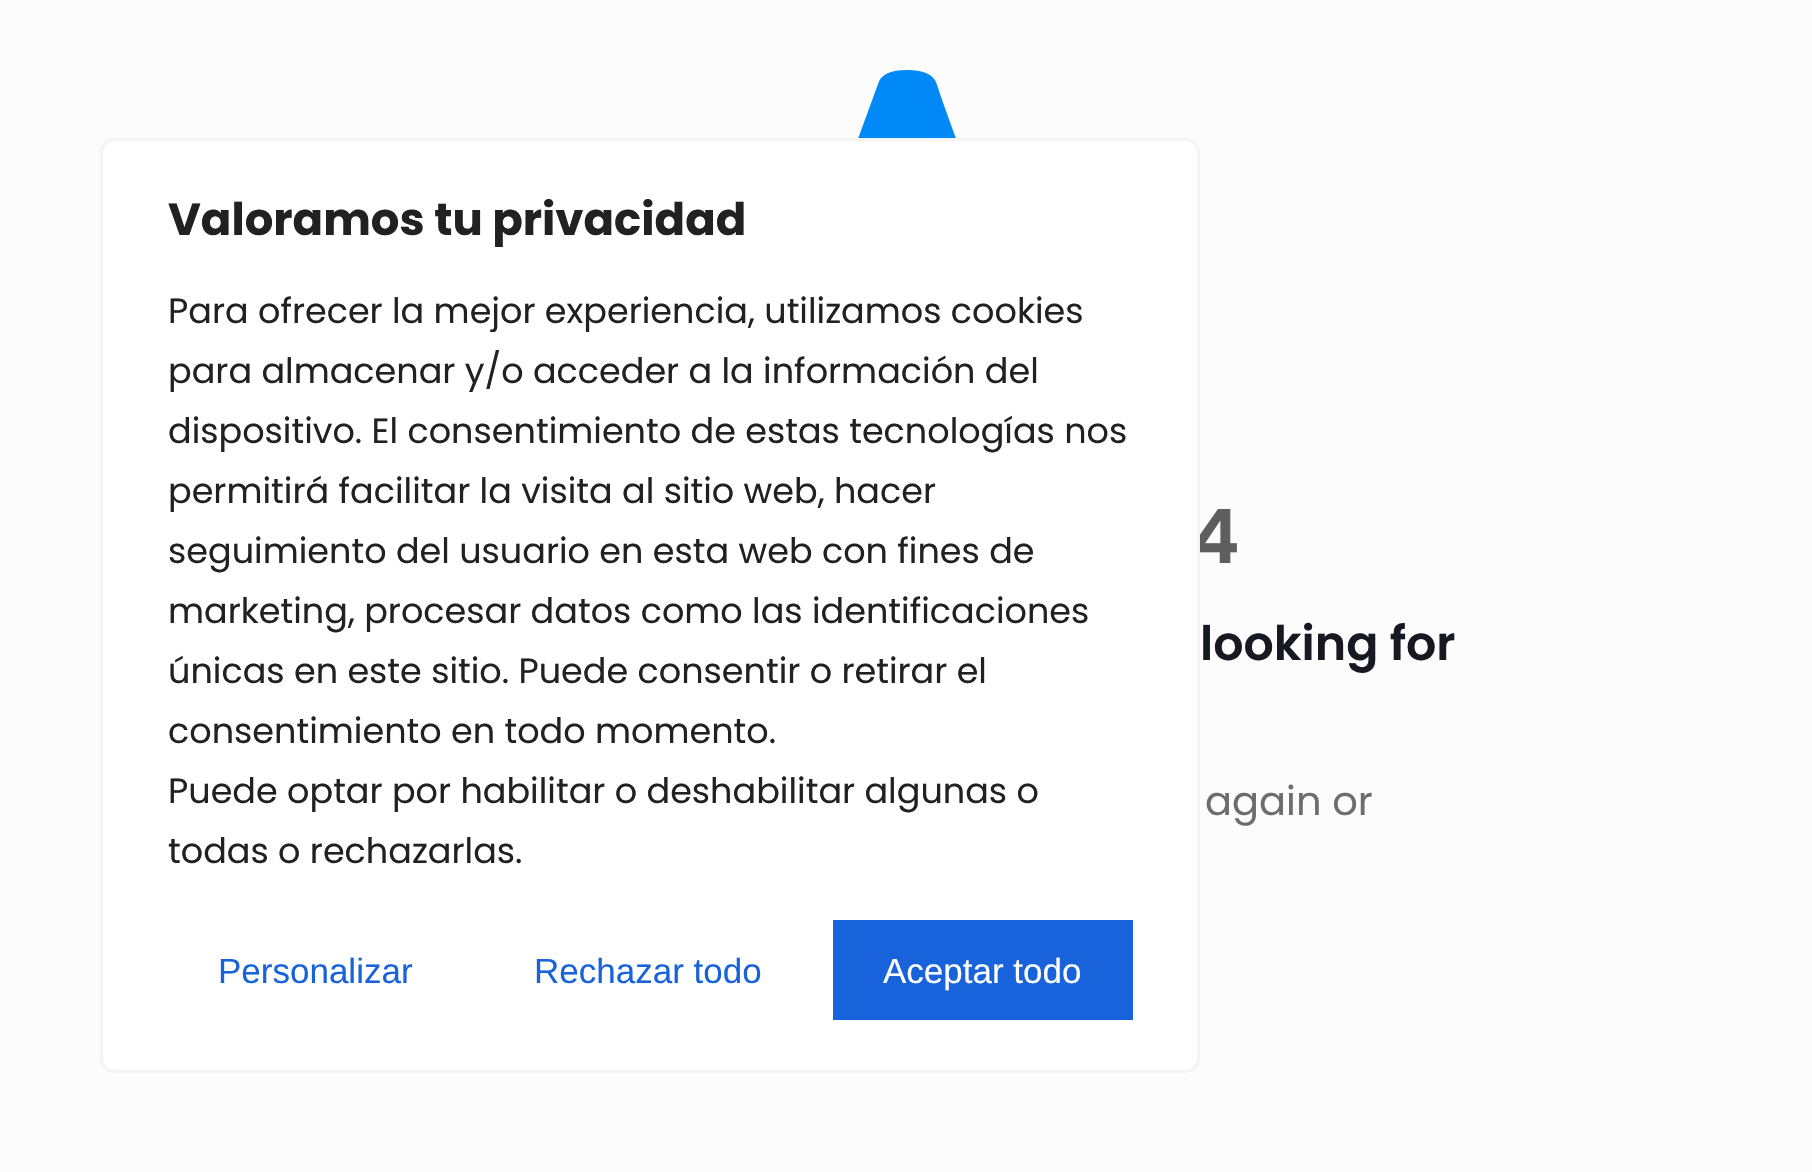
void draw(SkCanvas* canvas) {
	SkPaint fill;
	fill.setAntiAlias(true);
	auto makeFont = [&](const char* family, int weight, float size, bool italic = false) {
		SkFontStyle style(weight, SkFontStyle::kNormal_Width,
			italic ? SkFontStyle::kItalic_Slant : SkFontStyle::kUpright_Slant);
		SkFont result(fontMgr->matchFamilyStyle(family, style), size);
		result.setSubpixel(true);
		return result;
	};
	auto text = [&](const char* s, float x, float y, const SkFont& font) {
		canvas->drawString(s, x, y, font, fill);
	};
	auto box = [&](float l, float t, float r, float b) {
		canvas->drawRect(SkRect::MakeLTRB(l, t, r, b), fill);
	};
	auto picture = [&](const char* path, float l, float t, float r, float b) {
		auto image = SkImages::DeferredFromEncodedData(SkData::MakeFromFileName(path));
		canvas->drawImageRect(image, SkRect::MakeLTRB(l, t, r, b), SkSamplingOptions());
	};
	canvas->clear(0xFFFCFCFC);
	picture("image0.png", 858, 70, 956, 138);
	canvas->save();
	canvas->clipPath(SkPathBuilder().moveTo(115, 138).lineTo(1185, 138).cubicTo(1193.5f, 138, 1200, 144.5f, 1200, 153).lineTo(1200, 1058).cubicTo(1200, 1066.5f, 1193.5f, 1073, 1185, 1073).lineTo(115, 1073).cubicTo(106.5f, 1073, 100, 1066.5f, 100, 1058).lineTo(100, 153).cubicTo(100, 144.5f, 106.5f, 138, 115, 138).close().detach(), true);
	fill.setColor(0x4DACABAB);
	fill.setMaskFilter(SkMaskFilter::MakeBlur(kNormal_SkBlurStyle, 12.5f));
	canvas->drawRoundRect(SkRect::MakeLTRB(100, 135, 1200, 1070), 15, 15, fill);
	fill.setMaskFilter(nullptr);
	canvas->restore();
	auto font1 = makeFont("Poppins", 600, 75);
	fill.setColor(0xFF5E5E5E);
	text("4", 1190, 563, font1);
	fill.setColor(0xFFFFFFFF);
	canvas->drawRoundRect(SkRect::MakeLTRB(101.5f, 139.5f, 1198.5f, 1071.5f), 13.5f, 13.5f, fill);
	fill.setStyle(SkPaint::kStroke_Style);
	fill.setStrokeWidth(3);
	fill.setColor(0xFFF4F4F4);
	canvas->drawRoundRect(SkRect::MakeLTRB(101.5f, 139.5f, 1198.5f, 1071.5f), 13.5f, 13.5f, fill);
	fill.setStyle(SkPaint::kFill_Style);
	fill.setColor(0xFF1863DC);
	box(833, 920, 1133, 1020);
	auto font2 = makeFont("Liberation Sans", 400, 35);
	fill.setColor(0xFFFFFFFF);
	text("Aceptar todo", 883, 983, font2);
	fill.setColor(0xFF1863DC);
	text("Rechazar todo", 534, 983, font2);
	text("Personalizar", 218, 983, font2);
	auto font3 = makeFont("Poppins", 400, 35);
	fill.setColor(0xFF212121);
	text("todas o rechazarlas.", 168, 863, font3);
	text("Puede optar por habilitar o deshabilitar algunas o", 168, 803, font3);
	text("consentimiento en todo momento.", 168, 743, font3);
	text("únicas en este sitio. Puede consentir o retirar el", 168, 683, font3);
	text("marketing, procesar datos como las identificaciones", 168, 623, font3);
	text("seguimiento del usuario en esta web con fines de", 168, 563, font3);
	text("permitirá facilitar la visita al sitio web, hacer", 168, 503, font3);
	text("dispositivo. El consentimiento de estas tecnologías nos", 168, 443, font3);
	text("para almacenar y/o acceder a la información del", 168, 383, font3);
	text("Para ofrecer la mejor experiencia, utilizamos cookies", 168, 323, font3);
	auto font4 = makeFont("Poppins", 700, 45);
	text("Valoramos tu privacidad", 168, 235, font4);
	auto font5 = makeFont("Poppins", 600, 47.5f);
	fill.setColor(0xFF161922);
	text("looking for", 1200, 660, font5);
	auto font6 = makeFont("Poppins", 400, 40);
	fill.setColor(0xFF6D6D6D);
	text("again or", 1205, 815, font6);
}
